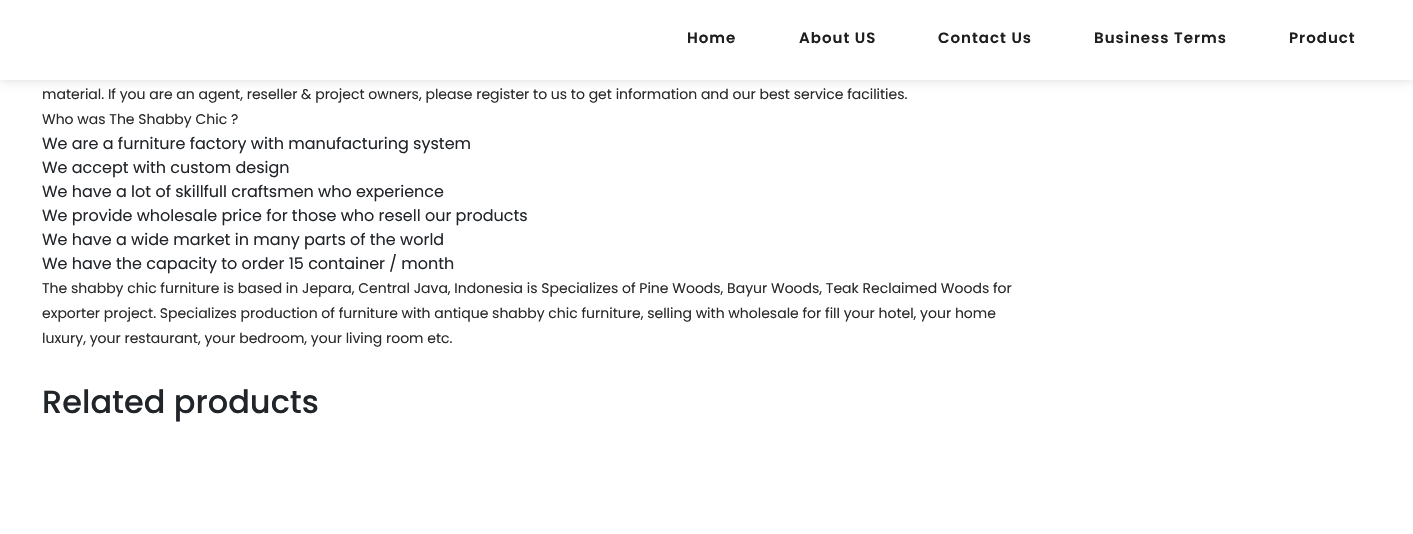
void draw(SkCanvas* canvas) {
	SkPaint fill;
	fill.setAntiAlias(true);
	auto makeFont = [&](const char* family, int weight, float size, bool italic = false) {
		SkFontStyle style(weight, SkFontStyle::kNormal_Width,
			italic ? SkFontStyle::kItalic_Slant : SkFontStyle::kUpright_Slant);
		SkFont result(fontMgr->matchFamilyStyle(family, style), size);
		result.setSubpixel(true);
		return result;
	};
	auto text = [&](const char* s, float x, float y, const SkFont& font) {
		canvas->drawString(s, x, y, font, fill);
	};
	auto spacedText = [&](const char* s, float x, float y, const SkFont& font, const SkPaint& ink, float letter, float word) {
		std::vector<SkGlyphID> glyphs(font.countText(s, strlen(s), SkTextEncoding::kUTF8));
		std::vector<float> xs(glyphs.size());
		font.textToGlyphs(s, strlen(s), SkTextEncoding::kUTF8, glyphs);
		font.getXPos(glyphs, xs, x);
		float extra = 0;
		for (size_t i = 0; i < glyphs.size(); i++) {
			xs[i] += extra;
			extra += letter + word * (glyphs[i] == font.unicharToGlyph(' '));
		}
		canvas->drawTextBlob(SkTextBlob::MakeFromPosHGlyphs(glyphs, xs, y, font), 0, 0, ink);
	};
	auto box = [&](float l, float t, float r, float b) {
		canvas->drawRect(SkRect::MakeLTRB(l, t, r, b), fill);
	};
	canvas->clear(0xFFFFFFFF);
	fill.setColor(0x26000000);
	fill.setMaskFilter(SkMaskFilter::MakeBlur(kNormal_SkBlurStyle, 5));
	canvas->drawRect(SkRect::MakeLTRB(0, 0, 1413, 80), fill);
	fill.setMaskFilter(nullptr);
	fill.setColor(0xFFFFFFFF);
	box(0, 0, 1413, 80);
	auto font1 = makeFont("Poppins", 600, 15);
	fill.setColor(0xFF1E1E1E);
	spacedText("Home", 687, 43, font1, fill, 1, 0);
	spacedText("About US", 799, 43, font1, fill, 1, 0);
	spacedText("Contact Us", 938, 43, font1, fill, 1, 0);
	spacedText("Business Terms", 1094, 43, font1, fill, 1, 0);
	spacedText("Product", 1289, 43, font1, fill, 1, 0);
	auto font2 = makeFont("Poppins", 400, 14);
	fill.setColor(0xFF2A2A2A);
	text("material. If you are an agent, reseller & project owners, please register to us to get information and our best service facilities.", 42, 99, font2);
	text("Who was The Shabby Chic ?", 42, 124, font2);
	auto font3 = makeFont("Poppins", 400, 16);
	fill.setColor(0xFF212529);
	text("We are a furniture factory with manufacturing system", 42, 149, font3);
	text("We accept with custom design", 42, 173, font3);
	text("We have a lot of skillfull craftsmen who experience", 42, 197, font3);
	text("We provide wholesale price for those who resell our products", 42, 221, font3);
	text("We have a wide market in many parts of the world", 42, 245, font3);
	text("We have the capacity to order 15 container / month", 42, 269, font3);
	fill.setColor(0xFF2A2A2A);
	text("The shabby chic furniture is based in Jepara, Central Java, Indonesia is Specializes of Pine Woods, Bayur Woods, Teak Reclaimed Woods for", 42, 293, font2);
	text("exporter project. Specializes production of furniture with antique shabby chic furniture, selling with wholesale for fill your hotel, your home", 42, 318, font2);
	text("luxury, your restaurant, your bedroom, your living room etc.", 42, 343, font2);
	auto font4 = makeFont("Poppins", 500, 32);
	fill.setColor(0xFF212529);
	text("Related products", 42, 413, font4);
}
